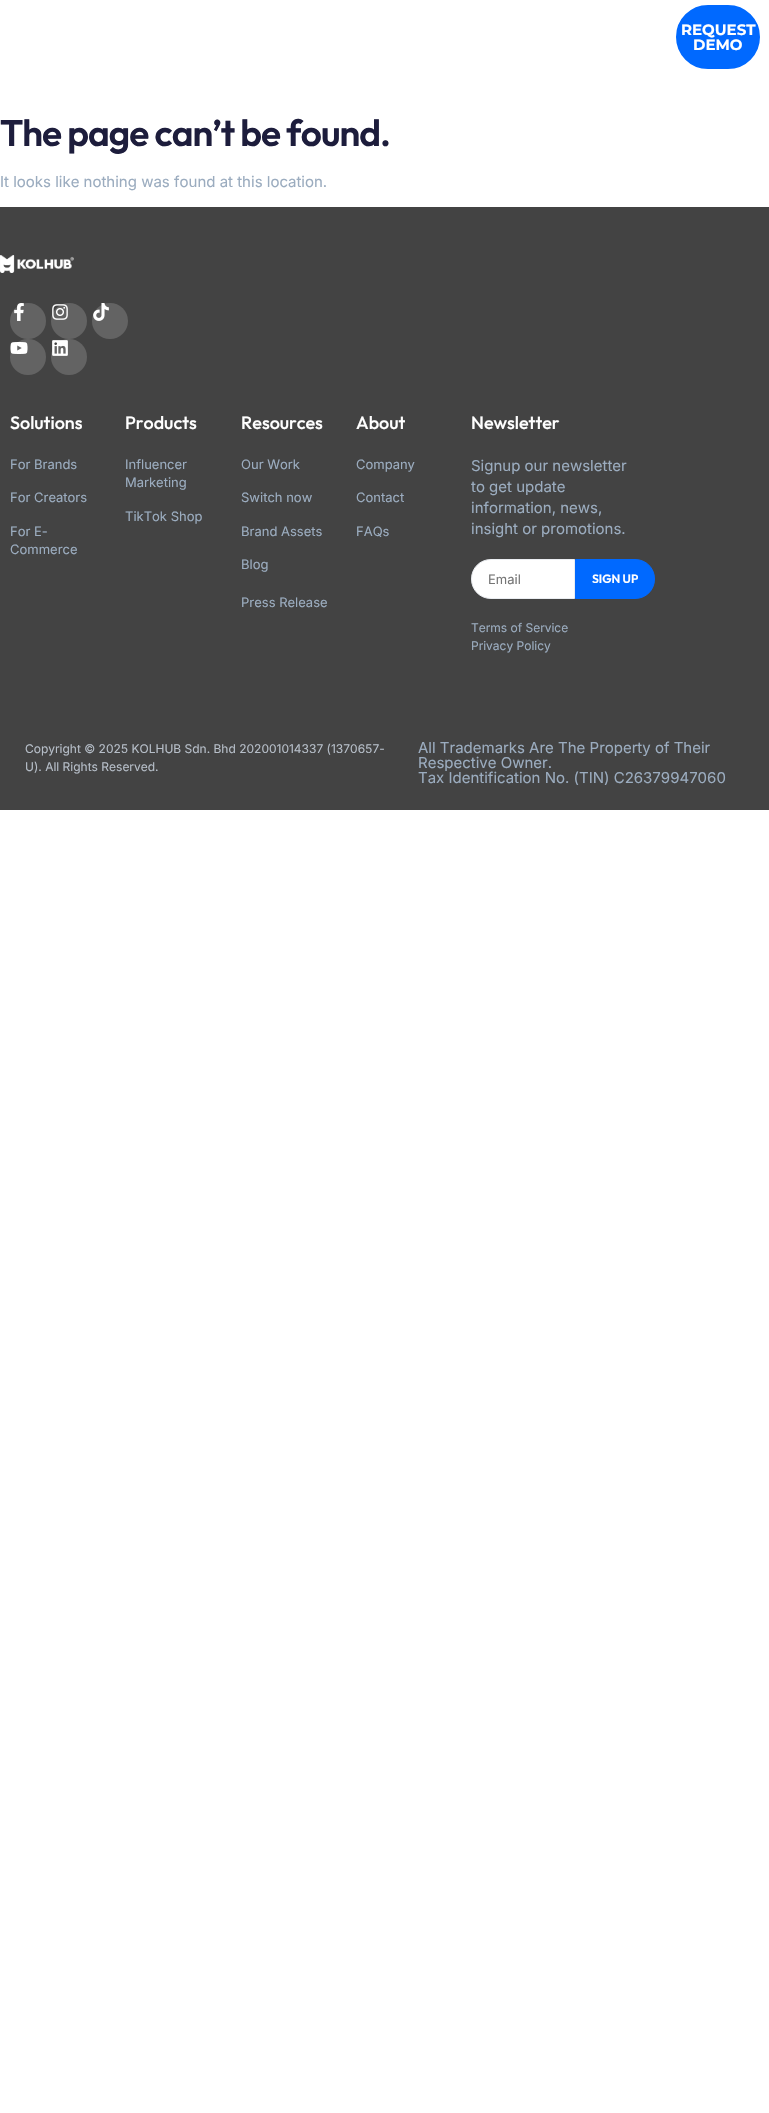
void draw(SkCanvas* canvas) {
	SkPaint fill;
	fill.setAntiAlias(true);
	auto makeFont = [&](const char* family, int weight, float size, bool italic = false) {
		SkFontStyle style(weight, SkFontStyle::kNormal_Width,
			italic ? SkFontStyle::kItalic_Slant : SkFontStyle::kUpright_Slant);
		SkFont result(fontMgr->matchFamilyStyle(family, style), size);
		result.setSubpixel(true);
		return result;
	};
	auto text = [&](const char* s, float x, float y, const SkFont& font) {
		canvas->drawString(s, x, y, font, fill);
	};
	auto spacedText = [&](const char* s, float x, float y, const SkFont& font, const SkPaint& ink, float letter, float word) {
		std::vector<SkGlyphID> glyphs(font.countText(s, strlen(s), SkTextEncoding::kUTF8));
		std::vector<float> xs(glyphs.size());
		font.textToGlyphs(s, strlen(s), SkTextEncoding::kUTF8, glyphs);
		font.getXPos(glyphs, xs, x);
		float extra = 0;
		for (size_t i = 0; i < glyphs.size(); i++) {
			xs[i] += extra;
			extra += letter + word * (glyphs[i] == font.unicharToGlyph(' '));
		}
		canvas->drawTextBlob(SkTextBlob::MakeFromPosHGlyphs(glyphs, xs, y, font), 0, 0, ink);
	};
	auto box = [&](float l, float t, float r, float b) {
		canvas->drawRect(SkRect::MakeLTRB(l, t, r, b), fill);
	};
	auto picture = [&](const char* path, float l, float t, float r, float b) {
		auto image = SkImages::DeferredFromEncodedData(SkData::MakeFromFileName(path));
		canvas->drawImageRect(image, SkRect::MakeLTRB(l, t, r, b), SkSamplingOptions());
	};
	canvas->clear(0xFFFFFFFF);
	fill.setColor(0xFF0069FF);
	canvas->drawRoundRect(SkRect::MakeLTRB(677, 6, 759, 68), 31, 31, fill);
	fill.setStyle(SkPaint::kStroke_Style);
	fill.setStrokeWidth(2);
	canvas->drawRoundRect(SkRect::MakeLTRB(677, 6, 759, 68), 31, 31, fill);
	fill.setStyle(SkPaint::kFill_Style);
	fill.setColor(0xFF434343);
	box(0, 207, 769, 810);
	picture("image0.png", 0, 255, 74, 273);
	fill.setColor(0xFF636363);
	canvas->drawCircle(28, 321, 18, fill);
	picture("image1.png", 14, 303, 24, 321);
	canvas->drawCircle(69, 321, 18, fill);
	picture("image2.png", 52, 304, 68, 320);
	canvas->drawCircle(110, 321, 18, fill);
	picture("image3.png", 93, 303, 109, 321);
	canvas->drawCircle(28, 357, 18, fill);
	picture("image4.png", 10, 342, 28, 354);
	canvas->drawCircle(69, 357, 18, fill);
	picture("image5.png", 52, 340, 68, 356);
	fill.setColor(0xFFFFFFFF);
	canvas->drawPath(SkPathBuilder().moveTo(491, 559.5f).lineTo(574.5f, 559.5f).lineTo(574.5f, 598.5f).lineTo(491, 598.5f).cubicTo(480, 598.5f, 471.5f, 590, 471.5f, 579).cubicTo(471.5f, 568, 480, 559.5f, 491, 559.5f).close().detach(), fill);
	fill.setStyle(SkPaint::kStroke_Style);
	fill.setStrokeWidth(1);
	fill.setColor(0xFFEAEDF1);
	canvas->drawPath(SkPathBuilder().moveTo(491, 559.5f).lineTo(574.5f, 559.5f).lineTo(574.5f, 598.5f).lineTo(491, 598.5f).cubicTo(480, 598.5f, 471.5f, 590, 471.5f, 579).cubicTo(471.5f, 568, 480, 559.5f, 491, 559.5f).close().detach(), fill);
	fill.setStyle(SkPaint::kFill_Style);
	fill.setColor(0xFF0069FF);
	canvas->drawPath(SkPathBuilder().moveTo(575.5f, 559.5f).lineTo(635, 559.5f).cubicTo(646, 559.5f, 654.5f, 568, 654.5f, 579).cubicTo(654.5f, 590, 646, 598.5f, 635, 598.5f).lineTo(575.5f, 598.5f).close().detach(), fill);
	fill.setStyle(SkPaint::kStroke_Style);
	canvas->drawPath(SkPathBuilder().moveTo(575.5f, 559.5f).lineTo(635, 559.5f).cubicTo(646, 559.5f, 654.5f, 568, 654.5f, 579).cubicTo(654.5f, 590, 646, 598.5f, 635, 598.5f).lineTo(575.5f, 598.5f).close().detach(), fill);
	auto font1 = makeFont("Montserrat", 700, 15);
	fill.setStyle(SkPaint::kFill_Style);
	fill.setColor(0xFFFFFFFF);
	text("REQUEST", 681, 35, font1);
	text("DEMO", 693, 50, font1);
	auto font2 = makeFont("Outfit", 600, 37);
	fill.setColor(0xFF1D1D3C);
	spacedText("The page can’t be found.", 0, 146, font2, fill, -1, 0);
	auto font3 = makeFont("Inter", 400, 15);
	fill.setColor(0xFF9BACBF);
	text("It looks like nothing was found at this location.", 0, 187, font3);
	auto font4 = makeFont("Outfit", 500, 18);
	fill.setColor(0xFFFFFFFF);
	text("Solutions", 10, 429, font4);
	auto font5 = makeFont("Inter", 400, 13);
	fill.setColor(0xFF9BACBF);
	text("For Brands", 10, 469, font5);
	text("For Creators", 10, 502, font5);
	text("For E-", 10, 536, font5);
	text("Commerce", 10, 554, font5);
	fill.setColor(0xFFFFFFFF);
	text("Products", 125, 429, font4);
	fill.setColor(0xFF9BACBF);
	text("Influencer", 125, 469, font5);
	text("Marketing", 125, 487, font5);
	text("TikTok Shop", 125, 521, font5);
	fill.setColor(0xFFFFFFFF);
	text("Resources", 241, 429, font4);
	fill.setColor(0xFF9BACBF);
	text("Our Work", 241, 469, font5);
	text("Switch now", 241, 502, font5);
	text("Brand Assets", 241, 536, font5);
	text("Blog", 241, 569, font5);
	text("Press Release", 241, 607, font5);
	fill.setColor(0xFFFFFFFF);
	text("About", 356, 429, font4);
	fill.setColor(0xFF9BACBF);
	text("Company", 356, 469, font5);
	text("Contact", 356, 502, font5);
	text("FAQs", 356, 536, font5);
	fill.setColor(0xFFFFFFFF);
	text("Newsletter", 471, 429, font4);
	fill.setColor(0xFF9BACBF);
	text("Signup our newsletter", 471, 471, font3);
	text("to get update", 471, 492, font3);
	text("information, news,", 471, 513, font3);
	text("insight or promotions.", 471, 534, font3);
	fill.setColor(0xFF757575);
	text("Email", 488, 584, font5);
	auto font6 = makeFont("Outfit", 600, 12);
	fill.setColor(0xFFFFFFFF);
	text("SIGN UP", 592, 583, font6);
	auto font7 = makeFont("Inter", 400, 12);
	fill.setColor(0xFF9BACBF);
	text("Terms of Service", 471, 632, font7);
	text("Privacy Policy", 471, 650, font7);
	fill.setColor(0xFFB6BEC8);
	text("Copyright © 2025 KOLHUB Sdn. Bhd 202001014337 (1370657-", 25, 753, font7);
	text("U). All Rights Reserved.", 25, 771, font7);
	fill.setColor(0xFF9BACBF);
	text("All Trademarks Are The Property of Their", 418, 753, font3);
	text("Respective Owner.", 418, 768, font3);
	text("Tax Identification No. (TIN) C26379947060", 418, 783, font3);
}
